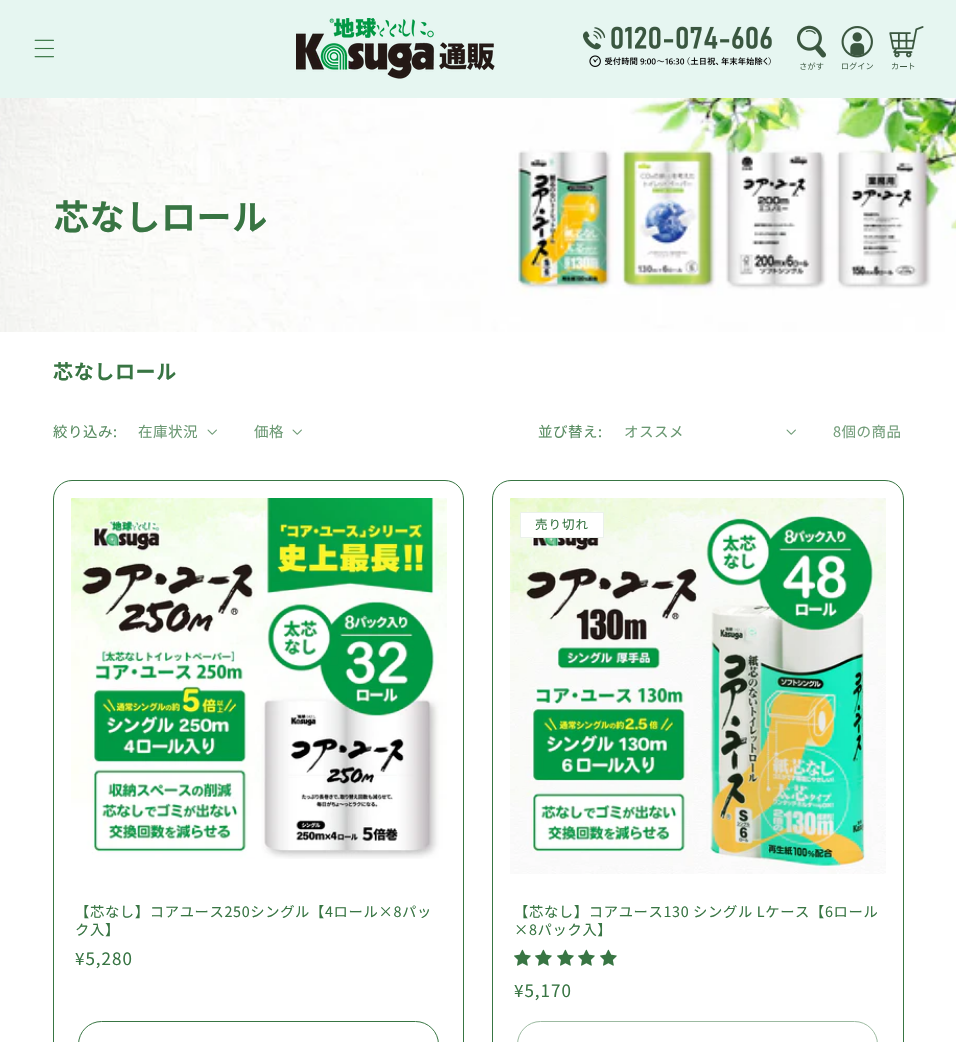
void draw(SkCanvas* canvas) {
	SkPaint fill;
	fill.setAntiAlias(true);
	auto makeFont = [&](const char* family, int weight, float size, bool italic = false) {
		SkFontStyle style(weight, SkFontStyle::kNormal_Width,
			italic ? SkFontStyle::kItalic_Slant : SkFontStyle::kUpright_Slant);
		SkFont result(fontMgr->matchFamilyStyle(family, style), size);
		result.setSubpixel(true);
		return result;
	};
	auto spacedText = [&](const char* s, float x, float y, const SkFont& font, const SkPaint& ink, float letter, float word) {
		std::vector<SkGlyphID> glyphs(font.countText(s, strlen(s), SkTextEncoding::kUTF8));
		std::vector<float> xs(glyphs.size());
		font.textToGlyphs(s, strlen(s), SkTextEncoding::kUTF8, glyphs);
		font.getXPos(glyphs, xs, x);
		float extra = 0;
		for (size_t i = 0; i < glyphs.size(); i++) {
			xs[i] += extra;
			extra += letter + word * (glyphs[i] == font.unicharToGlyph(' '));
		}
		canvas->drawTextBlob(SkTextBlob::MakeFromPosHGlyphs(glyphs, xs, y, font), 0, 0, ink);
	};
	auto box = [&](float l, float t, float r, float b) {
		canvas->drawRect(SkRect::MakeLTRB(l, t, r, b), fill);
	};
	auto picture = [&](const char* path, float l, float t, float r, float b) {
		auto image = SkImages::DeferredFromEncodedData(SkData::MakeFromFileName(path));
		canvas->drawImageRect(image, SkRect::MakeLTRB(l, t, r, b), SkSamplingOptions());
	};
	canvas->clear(0xFFFFFFFF);
	fill.setColor(0xFFE6F6F1);
	box(0, 0, 956, 98);
	picture("image0.png", 34, 39, 54, 58);
	picture("image1.png", 296, 18, 495, 79);
	picture("image2.png", 583, 26, 772, 67);
	picture("image3.png", 797, 25, 826, 70);
	picture("image4.png", 841, 26, 873, 70);
	picture("image5.png", 889, 26, 924, 70);
	picture("image6.png", 0, 98, 956, 332);
	picture("image7.png", 207, 429, 217, 435);
	picture("image7.png", 292, 429, 302, 435);
	picture("image7.png", 786, 429, 796, 435);
	fill.setStyle(SkPaint::kStroke_Style);
	fill.setStrokeWidth(1);
	fill.setColor(0xFF387543);
	canvas->drawRoundRect(SkRect::MakeLTRB(53.5f, 480.5f, 463.5f, 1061.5f), 18.5f, 18.5f, fill);
	picture("image8.png", 71, 498, 447, 859);
	canvas->drawRoundRect(SkRect::MakeLTRB(78.5f, 1021.5f, 438.5f, 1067.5f), 24, 24, fill);
	canvas->drawRoundRect(SkRect::MakeLTRB(492.5f, 480.5f, 903.5f, 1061.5f), 18.5f, 18.5f, fill);
	picture("image9.png", 510, 498, 886, 874);
	fill.setStyle(SkPaint::kFill_Style);
	fill.setColor(0xFFFFFFFF);
	canvas->drawRect(SkRect::MakeLTRB(520.5f, 512.5f, 603.5f, 537.5f), fill);
	fill.setStyle(SkPaint::kStroke_Style);
	fill.setColor(0xFFEBF1EC);
	canvas->drawRect(SkRect::MakeLTRB(520.5f, 512.5f, 603.5f, 537.5f), fill);
	picture("image10.png", 514, 949, 531, 966);
	picture("image10.png", 535, 949, 552, 966);
	picture("image10.png", 557, 949, 574, 966);
	picture("image10.png", 578, 949, 595, 966);
	picture("image10.png", 600, 949, 617, 966);
	fill.setColor(0xFF9CBAA1);
	canvas->drawRoundRect(SkRect::MakeLTRB(517.5f, 1021.5f, 877.5f, 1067.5f), 24, 24, fill);
	auto font1 = makeFont("Noto Sans JP", 700, 35);
	fill.setStyle(SkPaint::kFill_Style);
	fill.setColor(0xFF387543);
	spacedText("芯なしロール", 54, 230, font1, fill, 0.65f, 0);
	auto font2 = makeFont("Noto Sans JP", 700, 20);
	spacedText("芯なしロール", 53, 379, font2, fill, 0.65f, 0);
	auto font3 = makeFont("Noto Sans JP", 400, 14.5f);
	fill.setColor(0xFF568A5F);
	spacedText("絞り込み:", 53, 437, font3, fill, 0.5f, 0);
	fill.setColor(0xFF6A9872);
	spacedText("在庫状況", 138, 437, font3, fill, 0.5f, 0);
	spacedText("価格", 254, 437, font3, fill, 0.5f, 0);
	fill.setColor(0xFF568A5F);
	spacedText("並び替え:", 538, 437, font3, fill, 0.5f, 0);
	fill.setColor(0xFF6A9872);
	spacedText("オススメ", 624, 437, font3, fill, 0.5f, 0);
	fill.setColor(0xFF749E7B);
	spacedText("8個の商品", 833, 437, font3, fill, 0.5f, 0);
	auto font4 = makeFont("Noto Sans JP", 400, 14.3f);
	fill.setColor(0xFF387543);
	spacedText("【芯なし】コアユース250シングル【4ロール×8パッ", 75, 917, font4, fill, 0.65f, 0);
	spacedText("ク入】", 75, 935, font4, fill, 0.65f, 0);
	auto font5 = makeFont("Noto Sans JP", 400, 17);
	spacedText("¥5,280", 75, 965, font5, fill, 1, 0);
	auto font6 = makeFont("Noto Sans JP", 400, 12.5f);
	spacedText("売り切れ", 535, 529, font6, fill, 1, 0);
	spacedText("【芯なし】コアユース130 シングル Lケース【6ロール", 514, 917, font4, fill, 0.65f, 0);
	spacedText("×8パック入】", 514, 935, font4, fill, 0.65f, 0);
	spacedText("¥5,170", 514, 997, font5, fill, 1, 0);
}
